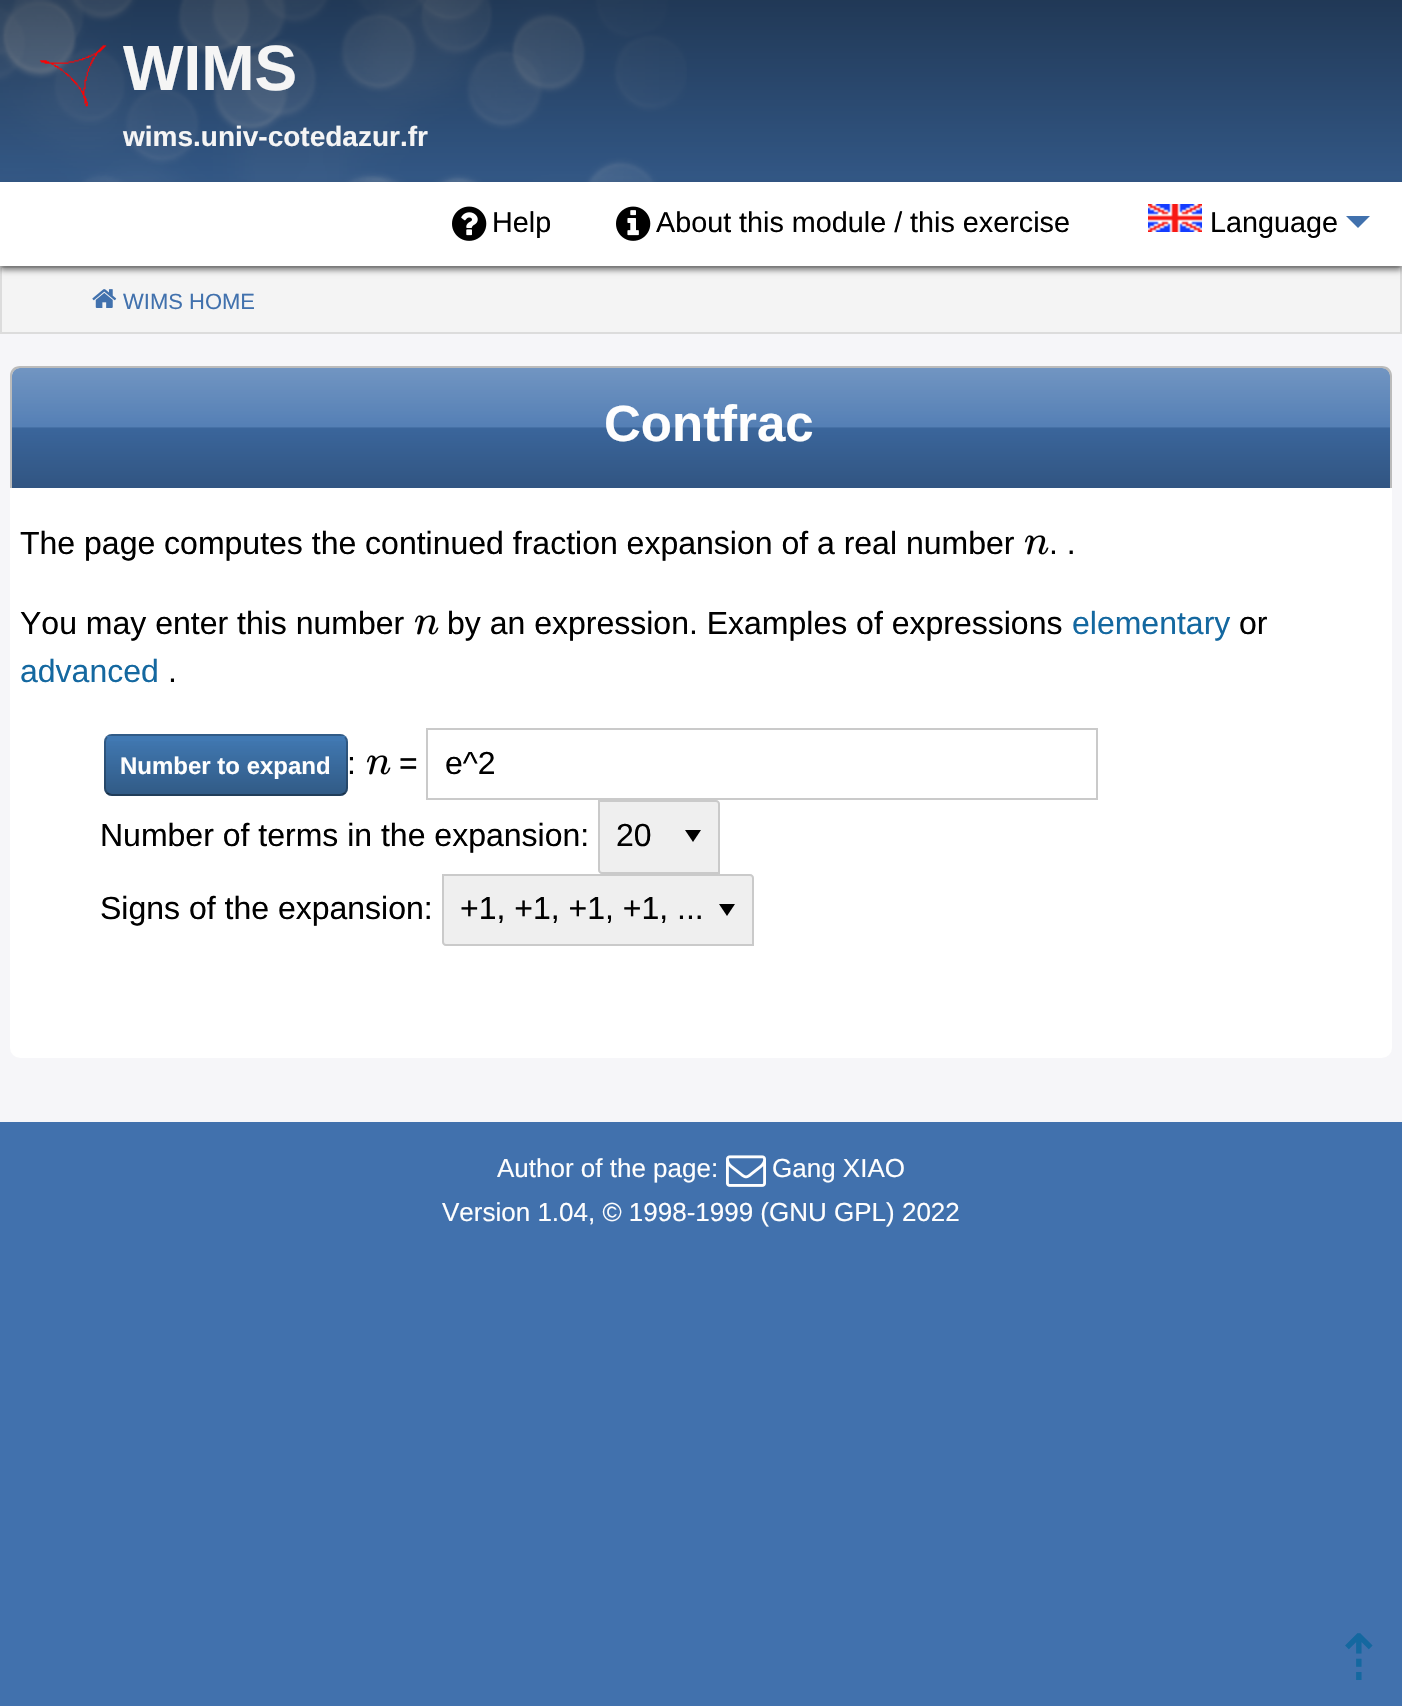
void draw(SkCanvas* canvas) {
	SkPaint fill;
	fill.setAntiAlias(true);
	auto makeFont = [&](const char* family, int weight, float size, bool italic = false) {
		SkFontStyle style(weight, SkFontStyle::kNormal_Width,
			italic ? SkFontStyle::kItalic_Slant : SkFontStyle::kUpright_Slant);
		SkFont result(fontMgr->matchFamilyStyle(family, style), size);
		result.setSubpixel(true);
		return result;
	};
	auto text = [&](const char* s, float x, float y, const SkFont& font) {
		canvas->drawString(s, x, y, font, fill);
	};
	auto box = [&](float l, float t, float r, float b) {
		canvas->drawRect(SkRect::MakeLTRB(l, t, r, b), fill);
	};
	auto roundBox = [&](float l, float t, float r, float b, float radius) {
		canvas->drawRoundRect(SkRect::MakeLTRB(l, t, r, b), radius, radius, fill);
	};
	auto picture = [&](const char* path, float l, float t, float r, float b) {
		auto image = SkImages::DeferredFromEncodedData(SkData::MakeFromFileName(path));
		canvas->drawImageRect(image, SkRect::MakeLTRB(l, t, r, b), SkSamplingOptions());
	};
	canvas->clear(0xFF4171AD);
	picture("image0.png", 0, 0, 687, 182);
	{
		const SkColor colors[] = {0x80000000, 0x00000000};
		const float stops[] = {0, 1};
		const SkPoint ends[] = {{701, 0}, {701, 334}};
		fill.setShader(SkGradientShader::MakeLinear(ends, colors, stops, 2, SkTileMode::kClamp));
		fill.setAlpha(255);
	}
	box(0, 0, 1402, 182);
	picture("image1.png", 39, 45, 107, 107);
	fill.setShader(nullptr);
	fill.setColor(0xFFF4F4F4);
	canvas->drawRect(SkRect::MakeLTRB(1, 267, 1401, 333), fill);
	fill.setStyle(SkPaint::kStroke_Style);
	fill.setStrokeWidth(2);
	fill.setColor(0xFFDCDCDC);
	canvas->drawRect(SkRect::MakeLTRB(1, 267, 1401, 333), fill);
	fill.setStyle(SkPaint::kFill_Style);
	fill.setColor(0x80000000);
	fill.setMaskFilter(SkMaskFilter::MakeBlur(kNormal_SkBlurStyle, 3));
	canvas->drawRect(SkRect::MakeLTRB(0, 186, 1402, 270), fill);
	fill.setMaskFilter(nullptr);
	fill.setColor(0xFFFFFFFF);
	box(0, 182, 1402, 266);
	picture("image2.png", 452, 206, 487, 241);
	picture("image3.png", 616, 206, 651, 241);
	picture("image4.png", 1148, 204, 1202, 232);
	fill.setColor(0xFF4171AD);
	canvas->drawPath(SkPathBuilder().moveTo(1346, 216).lineTo(1370, 216).lineTo(1358, 228).close().detach(), fill);
	picture("image5.png", 92, 289, 117, 308);
	fill.setColor(0xFFF6F6F9);
	box(0, 334, 1402, 1122);
	fill.setColor(0xFFFFFFFF);
	roundBox(10, 366, 1392, 1058, 10);
	fill.setColor(0xFF4171AD);
	canvas->drawPath(SkPathBuilder().moveTo(20, 368).lineTo(1382, 368).cubicTo(1386.5f, 368, 1390, 371.5f, 1390, 376).lineTo(1390, 488).lineTo(12, 488).lineTo(12, 376).cubicTo(12, 371.5f, 15.5f, 368, 20, 368).close().detach(), fill);
	{
		const SkColor colors[] = {0x40FFFFFF, 0x1AFFFFFF, 0x1A000000, 0x40000000};
		const float stops[] = {0, 0.49f, 0.5f, 1};
		const SkPoint ends[] = {{701, 368}, {701, 488}};
		fill.setShader(SkGradientShader::MakeLinear(ends, colors, stops, 4, SkTileMode::kClamp));
		fill.setAlpha(255);
	}
	canvas->drawPath(SkPathBuilder().moveTo(20, 368).lineTo(1382, 368).cubicTo(1386.5f, 368, 1390, 371.5f, 1390, 376).lineTo(1390, 488).lineTo(12, 488).lineTo(12, 376).cubicTo(12, 371.5f, 15.5f, 368, 20, 368).close().detach(), fill);
	fill.setShader(nullptr);
	fill.setColor(0xFFBBBBBB);
	canvas->drawPath(SkPathBuilder(SkPathFillType::kEvenOdd).moveTo(20, 366).lineTo(1382, 366).cubicTo(1388, 366, 1392, 370, 1392, 376).lineTo(1392, 488).lineTo(10, 488).lineTo(10, 376).cubicTo(10, 370, 14, 366, 20, 366).close().moveTo(20, 368).lineTo(1382, 368).cubicTo(1386, 368, 1390, 372, 1390, 376).lineTo(1390, 488).lineTo(12, 488).lineTo(12, 376).cubicTo(12, 372, 16, 368, 20, 368).close().detach(), fill);
	picture("image6.png", 1024, 535, 1049, 555);
	picture("image6.png", 414, 615, 439, 635);
	fill.setColor(0xFF4179B3);
	roundBox(104, 734, 348, 796, 8);
	canvas->save();
	canvas->clipPath(SkPathBuilder().moveTo(112, 734).lineTo(340, 734).cubicTo(344.5f, 734, 348, 737.5f, 348, 742).lineTo(348, 788).cubicTo(348, 792.5f, 344.5f, 796, 340, 796).lineTo(112, 796).cubicTo(107.5f, 796, 104, 792.5f, 104, 788).lineTo(104, 742).cubicTo(104, 737.5f, 107.5f, 734, 112, 734).close().detach(), true);
	{
		const SkColor colors[] = {0x00000000, 0x40000000};
		const float stops[] = {0, 1};
		const SkPoint ends[] = {{226, 678}, {226, 736}};
		fill.setShader(SkGradientShader::MakeLinear(ends, colors, stops, 2, SkTileMode::kClamp));
		fill.setAlpha(255);
	}
	box(104, 734, 348, 736);
	{
		const SkColor colors[] = {0x00000000, 0x40000000};
		const float stops[] = {0, 1};
		const SkPoint ends[] = {{226, 736}, {226, 794}};
		fill.setShader(SkGradientShader::MakeLinear(ends, colors, stops, 2, SkTileMode::kClamp));
		fill.setAlpha(255);
	}
	box(104, 741, 348, 794);
	canvas->restore();
	fill.setStyle(SkPaint::kStroke_Style);
	fill.setShader(nullptr);
	fill.setColor(0x40000000);
	canvas->drawPath(SkPathBuilder().moveTo(345, 737).cubicTo(346.5f, 738.5f, 347, 740, 347, 742).lineTo(347, 788).cubicTo(347, 790, 346.5f, 791.5f, 345, 793).detach(), fill);
	fill.setColor(0x80000000);
	canvas->drawPath(SkPathBuilder().moveTo(345, 793).cubicTo(343.5f, 794.5f, 342, 795, 340, 795).lineTo(112, 795).cubicTo(110, 795, 108.5f, 794.5f, 107, 793).detach(), fill);
	fill.setColor(0x40000000);
	canvas->drawPath(SkPathBuilder().moveTo(107, 793).cubicTo(105.5f, 791.5f, 105, 790, 105, 788).lineTo(105, 742).cubicTo(105, 740, 105.5f, 738.5f, 107, 737).detach(), fill);
	picture("image6.png", 366, 755, 391, 775);
	fill.setColor(0xFFCACACA);
	canvas->drawRect(SkRect::MakeLTRB(427, 729, 1097, 799), fill);
	fill.setStyle(SkPaint::kFill_Style);
	fill.setColor(0xFFEFEFEF);
	canvas->drawPath(SkPathBuilder().moveTo(598, 800).lineTo(716, 800).cubicTo(718, 800, 720, 802, 720, 804).lineTo(720, 874).lineTo(602, 874).cubicTo(600, 874, 598, 872, 598, 870).close().detach(), fill);
	fill.setColor(0xFF000000);
	canvas->drawPath(SkPathBuilder().moveTo(685, 830).lineTo(701, 830).lineTo(693, 842).close().detach(), fill);
	fill.setStyle(SkPaint::kStroke_Style);
	fill.setColor(0xFFCACACA);
	canvas->drawPath(SkPathBuilder().moveTo(599, 801).lineTo(716, 801).cubicTo(717.5f, 801, 719, 802.5f, 719, 804).lineTo(719, 873).lineTo(602, 873).cubicTo(600.5f, 873, 599, 871.5f, 599, 870).close().detach(), fill);
	fill.setStyle(SkPaint::kFill_Style);
	fill.setColor(0xFFEFEFEF);
	canvas->drawPath(SkPathBuilder().moveTo(442, 874).lineTo(750, 874).cubicTo(752, 874, 754, 876, 754, 878).lineTo(754, 946).lineTo(446, 946).cubicTo(444, 946, 442, 944, 442, 942).close().detach(), fill);
	fill.setColor(0xFF000000);
	canvas->drawPath(SkPathBuilder().moveTo(719, 904).lineTo(735, 904).lineTo(727, 916).close().detach(), fill);
	fill.setStyle(SkPaint::kStroke_Style);
	fill.setColor(0xFFCACACA);
	canvas->drawPath(SkPathBuilder().moveTo(443, 875).lineTo(750, 875).cubicTo(751.5f, 875, 753, 876.5f, 753, 878).lineTo(753, 945).lineTo(446, 945).cubicTo(444.5f, 945, 443, 943.5f, 443, 942).close().detach(), fill);
	picture("image7.png", 726, 1155, 766, 1187);
	auto font1 = makeFont("Liberation Sans", 700, 64);
	fill.setStyle(SkPaint::kFill_Style);
	fill.setColor(0xFFF5F5F5);
	text("WIMS", 123, 90, font1);
	auto font2 = makeFont("Liberation Sans", 700, 28);
	text("wims.univ-cotedazur.fr", 123, 146, font2);
	auto font3 = makeFont("Liberation Sans", 400, 28.75f);
	fill.setColor(0xFF000000);
	text("Help", 492, 232, font3);
	text("About this module / this exercise", 656, 232, font3);
	text("Language", 1210, 232, font3);
	auto font4 = makeFont("Liberation Sans", 400, 22);
	fill.setColor(0xFF4171AD);
	text("WIMS HOME", 123, 309, font4);
	auto font5 = makeFont("Liberation Sans", 700, 51);
	fill.setColor(0xFFFEFEFE);
	text("Contfrac", 604, 441, font5);
	auto font6 = makeFont("Liberation Sans", 400, 32);
	fill.setColor(0xFF000000);
	text("The page computes the continued fraction expansion of a real number", 20, 554, font6);
	text(". .", 1049, 554, font6);
	text("You may enter this number", 20, 634, font6);
	text("by an expression. Examples of expressions", 447, 634, font6);
	fill.setColor(0xFF1468A0);
	text("elementary", 1072, 634, font6);
	fill.setColor(0xFF000000);
	text("or", 1239, 634, font6);
	fill.setColor(0xFF1468A0);
	text("advanced", 20, 682, font6);
	fill.setColor(0xFF000000);
	text(".", 168, 682, font6);
	auto font7 = makeFont("Liberation Sans", 700, 24);
	fill.setColor(0xFFFEFEFE);
	text("Number to expand", 120, 774, font7);
	fill.setColor(0xFF000000);
	text(":", 347, 774, font6);
	text("=", 399, 774, font6);
	text("e^2", 445, 774, font6);
	text("Number of terms in the expansion:", 100, 846, font6);
	text("20", 616, 846, font6);
	text("Signs of the expansion:", 100, 919, font6);
	text("+1, +1, +1, +1, ...", 460, 919, font6);
	auto font8 = makeFont("DejaVu Sans", 400, 64);
	fill.setColor(0xFF1468A0);
	text("⇡", 1332, 1680, font8);
	auto font9 = makeFont("Liberation Sans", 400, 26);
	fill.setColor(0xFFFEFEFE);
	text("Author of the page:", 497, 1177, font9);
	text("Gang XIAO", 772, 1177, font9);
	text("Version 1.04, © 1998-1999 (GNU GPL) 2022", 442, 1221, font9);
}
